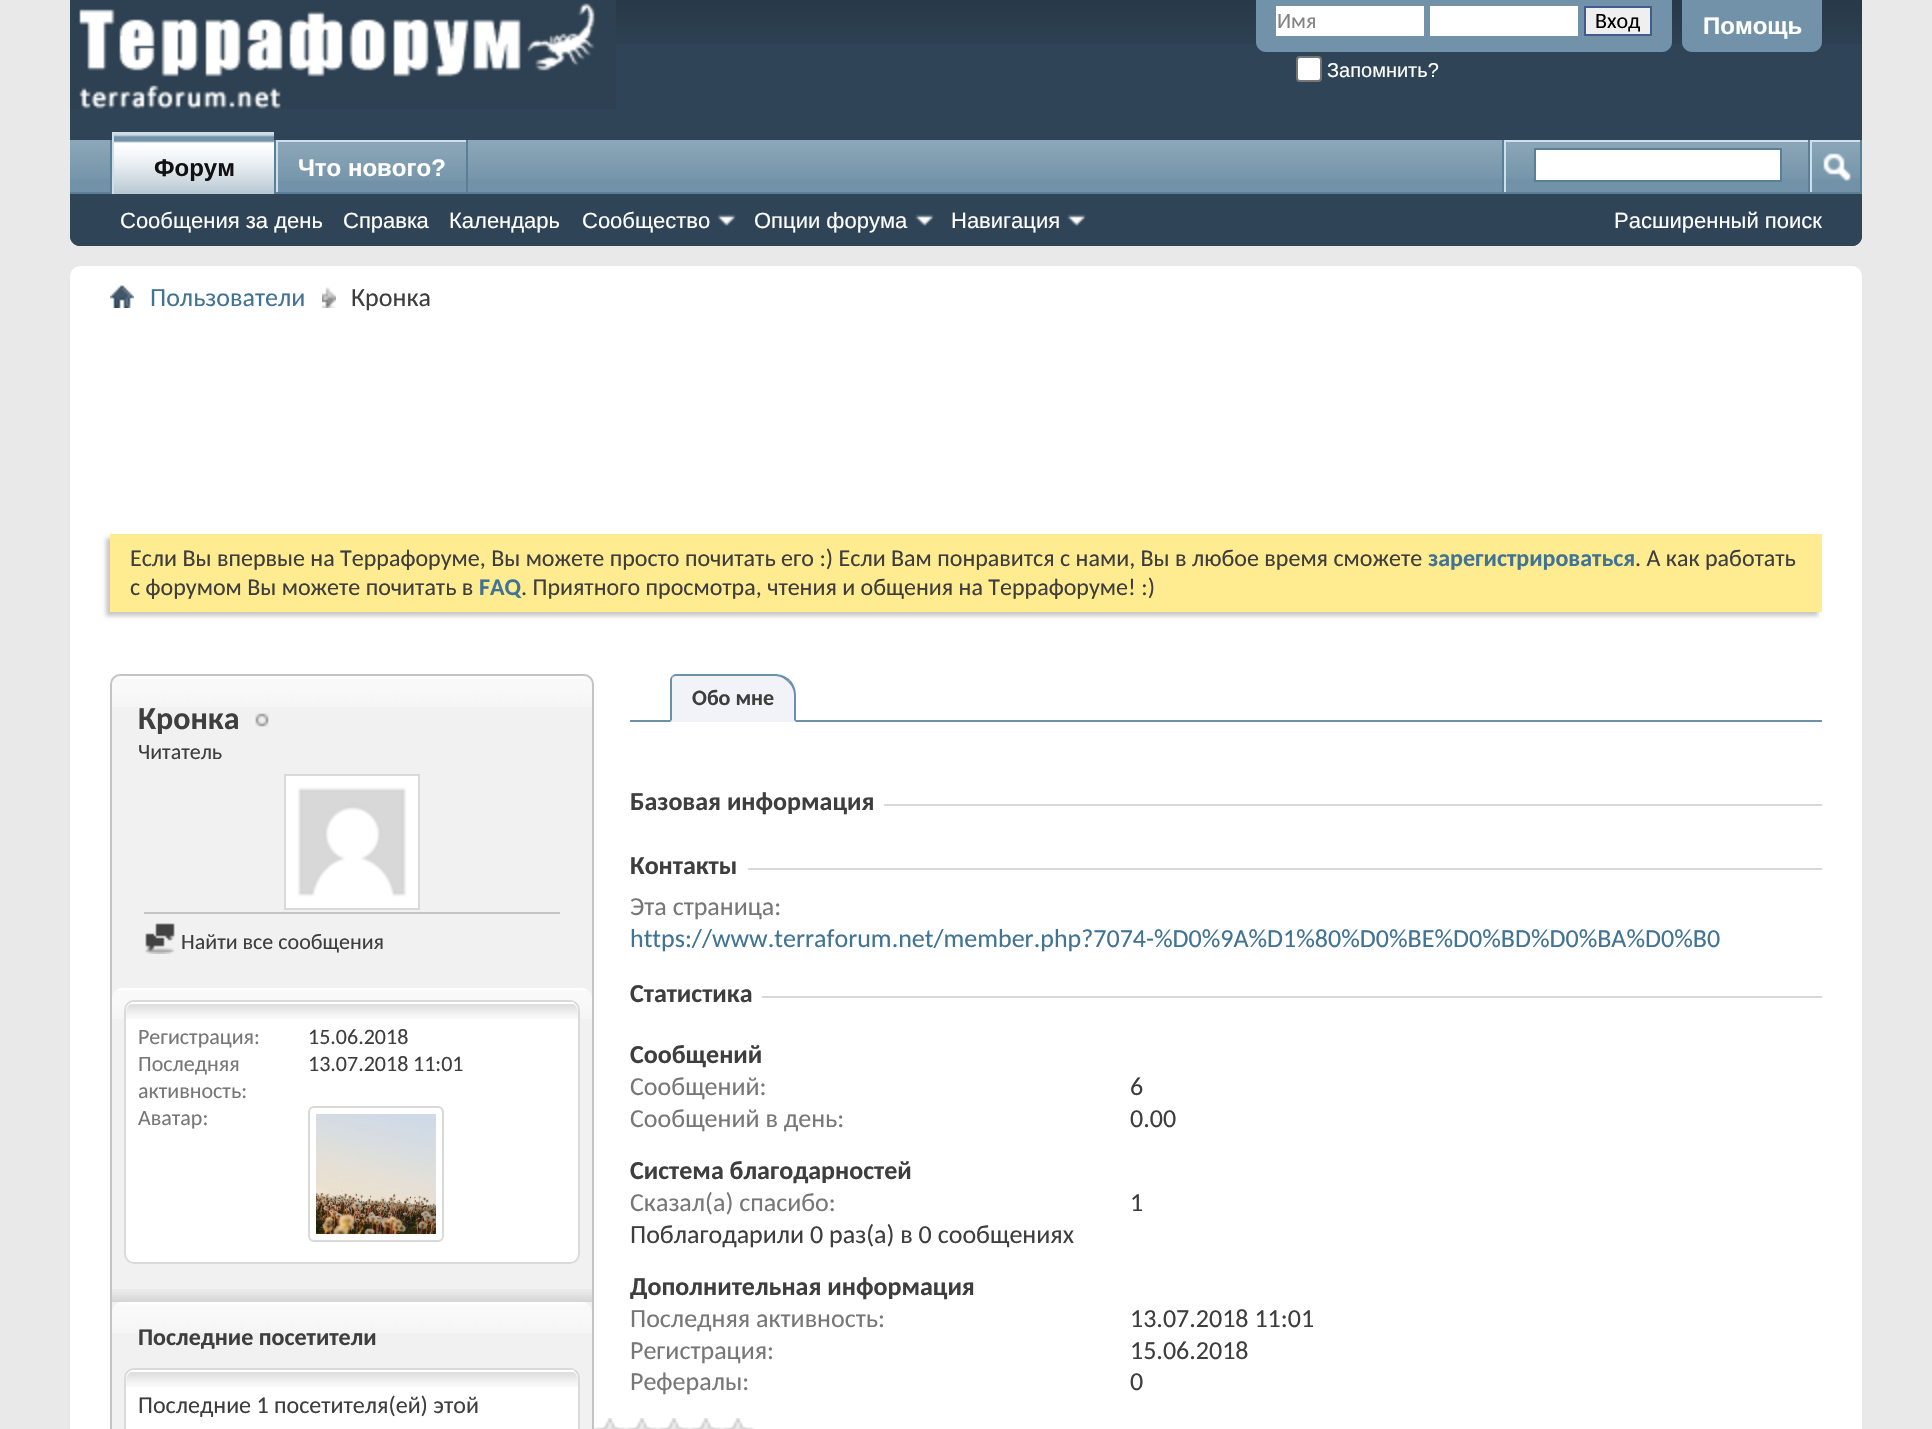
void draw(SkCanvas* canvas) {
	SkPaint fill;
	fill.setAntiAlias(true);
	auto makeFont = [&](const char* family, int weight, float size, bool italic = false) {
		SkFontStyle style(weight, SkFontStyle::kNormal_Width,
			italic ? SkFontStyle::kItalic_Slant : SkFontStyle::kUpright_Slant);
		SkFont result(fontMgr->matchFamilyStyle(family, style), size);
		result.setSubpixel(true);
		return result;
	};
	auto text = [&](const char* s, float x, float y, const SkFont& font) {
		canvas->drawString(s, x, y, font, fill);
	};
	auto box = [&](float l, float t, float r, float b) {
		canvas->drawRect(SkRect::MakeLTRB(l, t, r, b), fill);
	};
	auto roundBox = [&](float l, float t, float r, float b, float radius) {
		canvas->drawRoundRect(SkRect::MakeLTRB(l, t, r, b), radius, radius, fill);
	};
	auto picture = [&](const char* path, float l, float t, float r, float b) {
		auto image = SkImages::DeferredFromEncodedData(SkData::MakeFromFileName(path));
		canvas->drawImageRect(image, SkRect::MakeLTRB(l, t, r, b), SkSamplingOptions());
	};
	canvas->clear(0xFFE9E9E9);
	fill.setColor(0xFF2F4456);
	canvas->drawPath(SkPathBuilder().moveTo(70, 0).lineTo(1862, 0).lineTo(1862, 236).cubicTo(1862, 241.5f, 1857.5f, 246, 1852, 246).lineTo(80, 246).cubicTo(74.5f, 246, 70, 241.5f, 70, 236).close().detach(), fill);
	picture("image0.png", 616, 0, 1862, 44);
	picture("image1.png", 70, 0, 616, 109);
	fill.setColor(0xFF7192A8);
	canvas->drawPath(SkPathBuilder().moveTo(1256, 0).lineTo(1672, 0).lineTo(1672, 42).cubicTo(1672, 47.5f, 1667.5f, 52, 1662, 52).lineTo(1266, 52).cubicTo(1260.5f, 52, 1256, 47.5f, 1256, 42).close().detach(), fill);
	fill.setColor(0xFFFFFFFF);
	box(1276, 6, 1424, 36);
	box(1430, 6, 1578, 36);
	fill.setColor(0xFFEFEFEF);
	canvas->drawRect(SkRect::MakeLTRB(1585, 7, 1651, 35), fill);
	fill.setStyle(SkPaint::kStroke_Style);
	fill.setStrokeWidth(2);
	fill.setColor(0xFF415D8D);
	canvas->drawRect(SkRect::MakeLTRB(1585, 7, 1651, 35), fill);
	fill.setStyle(SkPaint::kFill_Style);
	fill.setColor(0xFFFFFFFF);
	canvas->drawRoundRect(SkRect::MakeLTRB(1297, 57, 1321, 81), 3, 3, fill);
	fill.setStyle(SkPaint::kStroke_Style);
	fill.setColor(0xFF767676);
	canvas->drawRoundRect(SkRect::MakeLTRB(1297, 57, 1321, 81), 3, 3, fill);
	fill.setStyle(SkPaint::kFill_Style);
	fill.setColor(0xFF7192A8);
	canvas->drawPath(SkPathBuilder().moveTo(1682, 0).lineTo(1822, 0).lineTo(1822, 42).cubicTo(1822, 47.5f, 1817.5f, 52, 1812, 52).lineTo(1692, 52).cubicTo(1686.5f, 52, 1682, 47.5f, 1682, 42).close().detach(), fill);
	fill.setColor(0xFF2F4456);
	canvas->drawPath(SkPathBuilder().moveTo(70, 140).lineTo(1862, 140).lineTo(1862, 236).cubicTo(1862, 241.5f, 1857.5f, 246, 1852, 246).lineTo(80, 246).cubicTo(74.5f, 246, 70, 241.5f, 70, 236).close().detach(), fill);
	fill.setColor(0xFF7192A8);
	box(70, 140, 1860, 192);
	picture("image2.png", 70, 140, 1860, 179);
	fill.setColor(0xFF5A7F97);
	box(274, 140, 276, 192);
	box(110, 140, 112, 192);
	box(466, 140, 468, 194);
	fill.setColor(0xFFCEDFEB);
	box(276, 140, 466, 142);
	box(276, 140, 278, 194);
	fill.setColor(0xFF5A7F97);
	box(70, 192, 1862, 194);
	fill.setColor(0xFF7192A8);
	box(114, 134, 274, 194);
	picture("image3.png", 114, 134, 274, 194);
	fill.setColor(0xFFCEDFEB);
	box(112, 132, 274, 134);
	box(112, 132, 114, 194);
	picture("image4.png", 717, 214, 736, 226);
	picture("image4.png", 915, 214, 934, 226);
	picture("image4.png", 1067, 214, 1086, 226);
	fill.setColor(0xFF7192A8);
	box(278, 142, 466, 179);
	picture("image5.png", 278, 142, 466, 181);
	fill.setColor(0xFF5A7F97);
	box(1502, 140, 1504, 192);
	fill.setColor(0xFFCEDFEB);
	box(1504, 140, 1808, 142);
	box(1504, 140, 1506, 192);
	fill.setColor(0xFFFFFFFF);
	canvas->drawRect(SkRect::MakeLTRB(1535, 149, 1781, 181), fill);
	fill.setStyle(SkPaint::kStroke_Style);
	fill.setColor(0xFF5A7F97);
	canvas->drawRect(SkRect::MakeLTRB(1535, 149, 1781, 181), fill);
	fill.setStyle(SkPaint::kFill_Style);
	box(1860, 140, 1862, 192);
	box(1808, 140, 1810, 192);
	fill.setColor(0xFFCEDFEB);
	box(1810, 140, 1860, 142);
	box(1810, 140, 1812, 192);
	picture("image6.png", 1823, 153, 1851, 182);
	fill.setColor(0xFFFFFFFF);
	roundBox(70, 266, 1862, 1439, 10);
	picture("image7.png", 110, 285, 134, 308);
	picture("image8.png", 322, 287, 336, 308);
	fill.setColor(0xFFC8C8C8);
	fill.setMaskFilter(SkMaskFilter::MakeBlur(kNormal_SkBlurStyle, 2));
	canvas->drawRect(SkRect::MakeLTRB(106, 538, 1818, 616), fill);
	fill.setMaskFilter(nullptr);
	fill.setColor(0xFFFFEB90);
	box(110, 534, 1822, 612);
	fill.setColor(0xFFF1F1F1);
	canvas->drawRoundRect(SkRect::MakeLTRB(111, 675, 593, 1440), 9, 9, fill);
	fill.setStyle(SkPaint::kStroke_Style);
	fill.setColor(0xFFC4C4C4);
	canvas->drawRoundRect(SkRect::MakeLTRB(111, 675, 593, 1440), 9, 9, fill);
	fill.setStyle(SkPaint::kFill_Style);
	fill.setColor(0xFFF1F1F1);
	canvas->drawPath(SkPathBuilder().moveTo(122, 676).lineTo(582, 676).cubicTo(587.5f, 676, 592, 680.5f, 592, 686).lineTo(592, 972).lineTo(112, 972).lineTo(112, 686).cubicTo(112, 680.5f, 116.5f, 676, 122, 676).close().detach(), fill);
	picture("image9.png", 112, 676, 592, 707);
	picture("image10.png", 255, 713, 269, 727);
	fill.setStyle(SkPaint::kStroke_Style);
	fill.setStrokeWidth(6);
	fill.setColor(0xFFFFFFFF);
	canvas->drawRect(SkRect::MakeLTRB(289, 779, 415, 905), fill);
	picture("image11.png", 292, 782, 412, 902);
	fill.setStrokeWidth(2);
	fill.setColor(0xFFD9D9D9);
	canvas->drawRect(SkRect::MakeLTRB(285, 775, 419, 909), fill);
	fill.setStyle(SkPaint::kFill_Style);
	fill.setColor(0xFFC4C4C4);
	box(144, 912, 560, 914);
	picture("image12.png", 145, 923, 175, 954);
	picture("image13.png", 112, 988, 592, 1019);
	fill.setColor(0xFFFFFFFF);
	canvas->drawRoundRect(SkRect::MakeLTRB(125, 1001, 579, 1263), 9, 9, fill);
	fill.setStyle(SkPaint::kStroke_Style);
	fill.setColor(0xFFDADADA);
	canvas->drawRoundRect(SkRect::MakeLTRB(125, 1001, 579, 1263), 9, 9, fill);
	picture("image14.png", 126, 1004, 578, 1019);
	fill.setStyle(SkPaint::kFill_Style);
	fill.setColor(0xFFFFFFFF);
	box(132, 1002, 574, 1003);
	fill.setStyle(SkPaint::kStroke_Style);
	fill.setColor(0xFFD9D9D9);
	canvas->drawRoundRect(SkRect::MakeLTRB(309, 1107, 443, 1241), 5, 5, fill);
	picture("image15.png", 316, 1114, 436, 1234);
	picture("image16.png", 112, 1289, 592, 1302);
	picture("image13.png", 112, 1302, 592, 1333);
	fill.setStyle(SkPaint::kFill_Style);
	fill.setColor(0xFFFFFFFF);
	canvas->drawRoundRect(SkRect::MakeLTRB(125, 1369, 579, 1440), 9, 9, fill);
	fill.setStyle(SkPaint::kStroke_Style);
	fill.setColor(0xFFDADADA);
	canvas->drawRoundRect(SkRect::MakeLTRB(125, 1369, 579, 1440), 9, 9, fill);
	picture("image14.png", 126, 1372, 578, 1387);
	fill.setStyle(SkPaint::kFill_Style);
	fill.setColor(0xFFFFFFFF);
	box(132, 1370, 574, 1371);
	fill.setColor(0xFF6B91AB);
	box(630, 720, 1822, 722);
	fill.setColor(0xFFF1F3F8);
	canvas->drawPath(SkPathBuilder().moveTo(676, 674).lineTo(774, 674).cubicTo(786, 674, 796, 684, 796, 696).lineTo(796, 722).lineTo(670, 722).lineTo(670, 680).cubicTo(670, 676.5f, 672.5f, 674, 676, 674).close().detach(), fill);
	fill.setColor(0xFF6B91AB);
	canvas->drawPath(SkPathBuilder().moveTo(676, 674).cubicTo(674, 674, 673, 675, 672, 676).lineTo(673, 677).cubicTo(674, 676, 675, 676, 676, 676).lineTo(774, 676).cubicTo(780, 676, 784, 678, 788, 682).lineTo(790, 680).cubicTo(786, 676, 780, 674, 774, 674).close().detach(), fill);
	canvas->drawPath(SkPathBuilder().moveTo(796, 722).lineTo(796, 696).cubicTo(796, 690, 794, 684, 790, 680).lineTo(788, 682).cubicTo(792, 686, 794, 690, 794, 696).lineTo(794, 720).close().detach(), fill);
	canvas->drawPath(SkPathBuilder().moveTo(670, 722).lineTo(672, 720).lineTo(672, 680).cubicTo(672, 679, 672, 678, 673, 677).lineTo(672, 676).cubicTo(671, 677, 670, 678, 670, 680).close().detach(), fill);
	fill.setColor(0xFFD8D8D8);
	box(884, 804, 1822, 806);
	box(748, 868, 1822, 870);
	box(762, 996, 1822, 998);
	picture("image17.png", 594, 1418, 626, 1429);
	picture("image17.png", 626, 1418, 658, 1429);
	picture("image17.png", 658, 1418, 690, 1429);
	picture("image17.png", 690, 1418, 722, 1429);
	picture("image17.png", 722, 1418, 754, 1429);
	auto font1 = makeFont("Carlito", 400, 22);
	fill.setColor(0xFF828282);
	text("Имя", 1277, 28, font1);
	fill.setColor(0xFF000000);
	text("Вход", 1595, 28, font1);
	auto font2 = makeFont("Liberation Sans", 400, 20);
	fill.setColor(0xFFFFFFFF);
	text("Запомнить?", 1327, 77, font2);
	auto font3 = makeFont("Liberation Sans", 700, 24);
	text("Помощь", 1703, 34, font3);
	fill.setColor(0xFF111111);
	text("Форум", 154, 176, font3);
	auto font4 = makeFont("Liberation Sans", 400, 22);
	fill.setColor(0xFFFFFFFF);
	text("Сообщения за день", 120, 228, font4);
	text("Справка", 343, 228, font4);
	text("Календарь", 449, 228, font4);
	text("Сообщество", 582, 228, font4);
	text("Опции форума", 754, 228, font4);
	text("Навигация", 951, 228, font4);
	text("Что нового?", 298, 176, font3);
	text("Расширенный поиск", 1614, 228, font4);
	auto font5 = makeFont("Carlito", 400, 26);
	fill.setColor(0xFF417394);
	text("Пользователи", 150, 306, font5);
	fill.setColor(0xFF3E3E3E);
	text("Кронка", 351, 306, font5);
	auto font6 = makeFont("Carlito", 400, 24);
	text("Если Вы впервые на Террафоруме, Вы можете просто почитать его :) Если Вам понравится с нами, Вы в любое время сможете", 130, 566, font6);
	auto font7 = makeFont("Carlito", 700, 24);
	fill.setColor(0xFF417394);
	text("зарегистрироваться", 1428, 566, font7);
	fill.setColor(0xFF3E3E3E);
	text(". А как работать", 1635, 566, font6);
	text("с форумом Вы можете почитать в", 130, 595, font6);
	fill.setColor(0xFF417394);
	text("FAQ", 479, 595, font7);
	fill.setColor(0xFF3E3E3E);
	text(". Приятного просмотра, чтения и общения на Террафоруме! :)", 521, 595, font6);
	auto font8 = makeFont("Carlito", 700, 32);
	text("Кронка", 138, 729, font8);
	text("Читатель", 138, 759, font1);
	text("Найти все сообщения", 181, 949, font1);
	fill.setColor(0xFF777777);
	text("Регистрация:", 138, 1044, font1);
	fill.setColor(0xFF3E3E3E);
	text("15.06.2018", 308, 1044, font1);
	fill.setColor(0xFF777777);
	text("Последняя", 138, 1071, font1);
	text("активность:", 138, 1098, font1);
	fill.setColor(0xFF3E3E3E);
	text("13.07.2018", 308, 1071, font1);
	text("11:01", 413, 1071, font1);
	fill.setColor(0xFF777777);
	text("Аватар:", 138, 1125, font1);
	fill.setColor(0xFF3E3E3E);
	text("Последние посетители", 138, 1345, font7);
	text("Последние 1 посетителя(ей) этой", 138, 1413, font6);
	auto font9 = makeFont("Carlito", 700, 22);
	text("Обо мне", 692, 705, font9);
	auto font10 = makeFont("Carlito", 700, 26);
	text("Базовая информация", 630, 810, font10);
	text("Контакты", 630, 874, font10);
	fill.setColor(0xFF777777);
	text("Эта страница:", 630, 915, font5);
	fill.setColor(0xFF417394);
	text("https://www.terraforum.net/member.php?7074-%D0%9A%D1%80%D0%BE%D0%BD%D0%BA%D0%B0", 630, 947, font5);
	fill.setColor(0xFF3E3E3E);
	text("Статистика", 630, 1002, font10);
	text("Сообщений", 630, 1063, font10);
	fill.setColor(0xFF777777);
	text("Сообщений:", 630, 1095, font5);
	fill.setColor(0xFF3E3E3E);
	text("6", 1130, 1095, font5);
	fill.setColor(0xFF777777);
	text("Сообщений в день:", 630, 1127, font5);
	fill.setColor(0xFF3E3E3E);
	text("0.00", 1130, 1127, font5);
	text("Система благодарностей", 630, 1179, font10);
	fill.setColor(0xFF777777);
	text("Сказал(а) спасибо:", 630, 1211, font5);
	fill.setColor(0xFF3E3E3E);
	text("1", 1130, 1211, font5);
	text("Поблагодарили 0 раз(а) в 0 сообщениях", 630, 1243, font5);
	text("Дополнительная информация", 630, 1295, font10);
	fill.setColor(0xFF777777);
	text("Последняя активность:", 630, 1327, font5);
	fill.setColor(0xFF3E3E3E);
	text("13.07.2018 11:01", 1130, 1327, font5);
	fill.setColor(0xFF777777);
	text("Регистрация:", 630, 1359, font5);
	fill.setColor(0xFF3E3E3E);
	text("15.06.2018", 1130, 1359, font5);
	fill.setColor(0xFF777777);
	text("Рефералы:", 630, 1390, font5);
	fill.setColor(0xFF3E3E3E);
	text("0", 1130, 1390, font5);
}
